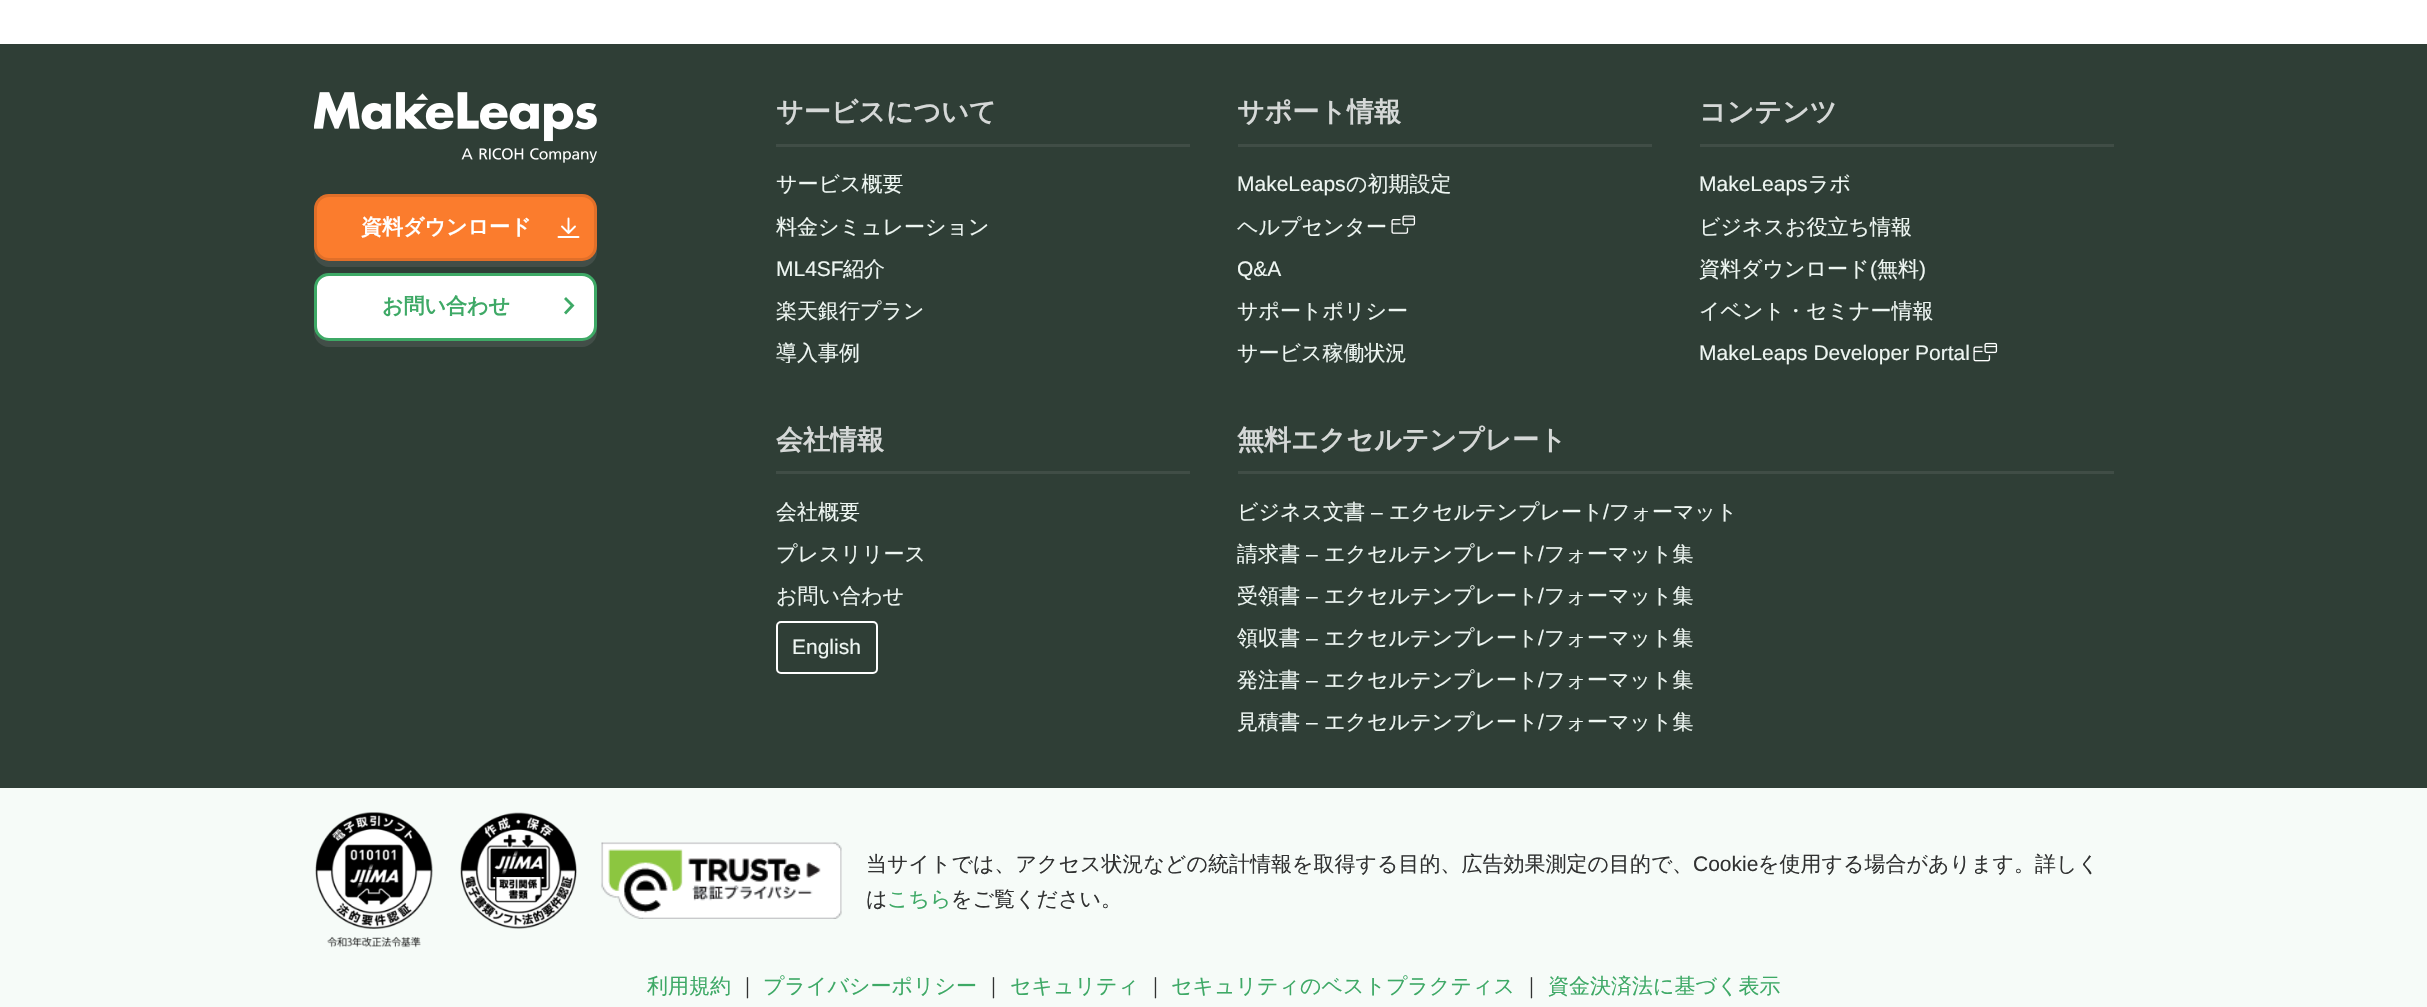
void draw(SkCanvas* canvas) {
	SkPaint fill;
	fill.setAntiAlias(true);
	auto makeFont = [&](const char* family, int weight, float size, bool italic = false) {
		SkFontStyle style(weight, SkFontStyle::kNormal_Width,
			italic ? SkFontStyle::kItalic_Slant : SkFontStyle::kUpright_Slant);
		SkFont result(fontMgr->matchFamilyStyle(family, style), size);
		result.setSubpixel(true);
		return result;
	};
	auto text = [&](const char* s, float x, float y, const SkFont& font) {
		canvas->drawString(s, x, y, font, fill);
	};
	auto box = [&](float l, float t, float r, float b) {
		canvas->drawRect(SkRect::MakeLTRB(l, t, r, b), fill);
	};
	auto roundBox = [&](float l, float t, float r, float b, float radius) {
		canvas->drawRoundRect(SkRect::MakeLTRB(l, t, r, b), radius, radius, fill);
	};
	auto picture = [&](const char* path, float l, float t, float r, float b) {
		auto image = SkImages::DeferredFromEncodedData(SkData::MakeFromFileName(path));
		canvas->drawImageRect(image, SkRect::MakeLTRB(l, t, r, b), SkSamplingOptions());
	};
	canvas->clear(0xFFFFFFFF);
	fill.setColor(0xFF2F3E36);
	box(0, 44, 2427, 788);
	picture("image0.png", 314, 92, 597, 163);
	fill.setColor(0xFF424E48);
	canvas->drawPath(SkPathBuilder().moveTo(314, 250).lineTo(314, 252).cubicTo(314, 260, 321, 267, 329, 267).lineTo(582, 267).cubicTo(590, 267, 597, 260, 597, 252).lineTo(597, 246).cubicTo(597, 254, 590, 261, 582, 261).lineTo(328, 261).cubicTo(322, 261, 316, 256, 314, 250).close().detach(), fill);
	fill.setColor(0xFFFB7C2D);
	roundBox(314, 194, 597, 261, 15);
	fill.setStyle(SkPaint::kStroke_Style);
	fill.setStrokeWidth(3);
	fill.setColor(0x1A000000);
	canvas->drawRoundRect(SkRect::MakeLTRB(315.5f, 195.5f, 595.5f, 259.5f), 13.5f, 13.5f, fill);
	fill.setStrokeWidth(1.9f);
	fill.setStrokeCap(SkPaint::kRound_Cap);
	fill.setStrokeJoin(SkPaint::kRound_Join);
	fill.setColor(0xFFFFFFFF);
	canvas->drawPath(SkPathBuilder().moveTo(562, 226.5f).lineTo(568.5f, 233).moveTo(568.5f, 233).lineTo(575, 226.5f).moveTo(568.5f, 233).lineTo(568.5f, 218.5f).moveTo(558.5f, 237).lineTo(578.5f, 237).detach(), fill);
	fill.setStyle(SkPaint::kFill_Style);
	fill.setColor(0xFF424E48);
	canvas->drawPath(SkPathBuilder().moveTo(314, 329).lineTo(314, 332).cubicTo(314, 340, 321, 347, 329, 347).lineTo(582, 347).cubicTo(590, 347, 597, 340, 597, 332).lineTo(597, 326).cubicTo(597, 334, 590, 340, 582, 340).lineTo(328, 340).cubicTo(322, 340, 316, 336, 314, 329).close().detach(), fill);
	fill.setColor(0xFFFFFFFF);
	canvas->drawRoundRect(SkRect::MakeLTRB(315.5f, 274.5f, 595.5f, 339.5f), 13.5f, 13.5f, fill);
	fill.setStyle(SkPaint::kStroke_Style);
	fill.setStrokeWidth(3);
	fill.setStrokeCap(SkPaint::kButt_Cap);
	fill.setStrokeJoin(SkPaint::kMiter_Join);
	fill.setColor(0xFF3EA966);
	canvas->drawRoundRect(SkRect::MakeLTRB(315.5f, 274.5f, 595.5f, 339.5f), 13.5f, 13.5f, fill);
	fill.setStyle(SkPaint::kFill_Style);
	canvas->drawPath(SkPathBuilder(SkPathFillType::kEvenOdd).moveTo(566, 314.5f).lineTo(564, 312.5f).lineTo(570.5f, 305.5f).lineTo(564, 299).lineTo(566, 297).lineTo(574.5f, 305.5f).close().detach(), fill);
	fill.setColor(0xFF404D46);
	box(776, 144, 1190, 147);
	box(1238, 144, 1652, 147);
	picture("image1.png", 1391, 215, 1416, 234);
	box(1700, 144, 2114, 147);
	picture("image2.png", 1973, 342, 1998, 362);
	box(776, 471, 1190, 474);
	fill.setStyle(SkPaint::kStroke_Style);
	fill.setStrokeWidth(2);
	fill.setColor(0xFFFFFFFF);
	canvas->drawRoundRect(SkRect::MakeLTRB(777, 622, 877, 673), 4, 4, fill);
	fill.setStyle(SkPaint::kFill_Style);
	fill.setColor(0xFF404D46);
	box(1238, 471, 2114, 474);
	fill.setColor(0xFFF6FBF8);
	box(0, 788, 2427, 1007);
	picture("image3.png", 315, 812, 577, 948);
	picture("image4.png", 601, 842, 842, 919);
	auto font1 = makeFont("WenQuanYi Zen Hei", 700, 21);
	fill.setColor(0xFFFFFFFF);
	text("資料ダウンロード", 361, 234, font1);
	fill.setColor(0xFF3EA966);
	text("お問い合わせ", 382, 313, font1);
	auto font2 = makeFont("WenQuanYi Zen Hei", 700, 27);
	fill.setColor(0xFFD5D8D7);
	text("サービスについて", 776, 121, font2);
	auto font3 = makeFont("WenQuanYi Zen Hei", 500, 21);
	fill.setColor(0xFFEEF6F2);
	text("サービス概要", 776, 191, font3);
	text("料金シミュレーション", 776, 234, font3);
	auto font4 = makeFont("Liberation Sans", 400, 21);
	text("ML4SF", 776, 276, font4);
	text("紹介", 843, 276, font3);
	text("楽天銀行プラン", 776, 318, font3);
	text("導入事例", 776, 360, font3);
	fill.setColor(0xFFD5D8D7);
	text("サポート情報", 1237, 121, font2);
	fill.setColor(0xFFEEF6F2);
	text("MakeLeaps", 1237, 191, font4);
	text("の初期設定", 1346, 191, font3);
	text("ヘルプセンター", 1237, 234, font3);
	text("Q&A", 1237, 276, font4);
	text("サポートポリシー", 1237, 318, font3);
	text("サービス稼働状況", 1237, 360, font3);
	fill.setColor(0xFFD5D8D7);
	text("コンテンツ", 1699, 121, font2);
	fill.setColor(0xFFEEF6F2);
	text("MakeLeaps", 1699, 191, font4);
	text("ラボ", 1808, 191, font3);
	text("ビジネスお役立ち情報", 1699, 234, font3);
	text("資料ダウンロード", 1699, 276, font3);
	text("(", 1870, 276, font4);
	text("無料", 1877, 276, font3);
	text(")", 1919, 276, font4);
	text("イベント・セミナー情報", 1699, 318, font3);
	text("MakeLeaps Developer Portal", 1699, 360, font4);
	fill.setColor(0xFFD5D8D7);
	text("会社情報", 776, 449, font2);
	fill.setColor(0xFFEEF6F2);
	text("会社概要", 776, 519, font3);
	text("プレスリリース", 776, 561, font3);
	text("お問い合わせ", 776, 603, font3);
	text("English", 792, 654, font4);
	fill.setColor(0xFFD5D8D7);
	text("無料エクセルテンプレート", 1237, 449, font2);
	fill.setColor(0xFFEEF6F2);
	text("ビジネス文書", 1237, 519, font3);
	text("–", 1371, 519, font4);
	text("エクセルテンプレート", 1389, 519, font3);
	text("/", 1603, 519, font4);
	text("フォーマット", 1609, 519, font3);
	text("請求書", 1237, 561, font3);
	text("–", 1306, 561, font4);
	text("エクセルテンプレート", 1324, 561, font3);
	text("/", 1538, 561, font4);
	text("フォーマット集", 1544, 561, font3);
	text("受領書", 1237, 603, font3);
	text("–", 1306, 603, font4);
	text("エクセルテンプレート", 1324, 603, font3);
	text("/", 1538, 603, font4);
	text("フォーマット集", 1544, 603, font3);
	text("領収書", 1237, 645, font3);
	text("–", 1306, 645, font4);
	text("エクセルテンプレート", 1324, 645, font3);
	text("/", 1538, 645, font4);
	text("フォーマット集", 1544, 645, font3);
	text("発注書", 1237, 687, font3);
	text("–", 1306, 687, font4);
	text("エクセルテンプレート", 1324, 687, font3);
	text("/", 1538, 687, font4);
	text("フォーマット集", 1544, 687, font3);
	text("見積書", 1237, 729, font3);
	text("–", 1306, 729, font4);
	text("エクセルテンプレート", 1324, 729, font3);
	text("/", 1538, 729, font4);
	text("フォーマット集", 1544, 729, font3);
	fill.setColor(0xFF313232);
	text("当サイトでは、アクセス状況などの統計情報を取得する目的、広告効果測定の目的で、", 866, 871, font3);
	text("Cookie", 1693, 871, font4);
	text("を使用する場合があります。詳しく", 1758, 871, font3);
	text("は", 866, 906, font3);
	fill.setColor(0xFF3EA966);
	text("こちら", 887, 906, font3);
	fill.setColor(0xFF313232);
	text("をご覧ください。", 951, 906, font3);
	fill.setColor(0xFF3EA966);
	text("利用規約", 647, 993, font3);
	fill.setColor(0xFF313232);
	text("｜", 737, 993, font3);
	fill.setColor(0xFF3EA966);
	text("プライバシーポリシー", 763, 993, font3);
	fill.setColor(0xFF313232);
	text("｜", 983, 993, font3);
	fill.setColor(0xFF3EA966);
	text("セキュリティ", 1010, 993, font3);
	fill.setColor(0xFF313232);
	text("｜", 1145, 993, font3);
	fill.setColor(0xFF3EA966);
	text("セキュリティのベストプラクティス", 1171, 993, font3);
	fill.setColor(0xFF313232);
	text("｜", 1521, 993, font3);
	fill.setColor(0xFF3EA966);
	text("資金決済法に基づく表示", 1548, 993, font3);
}
